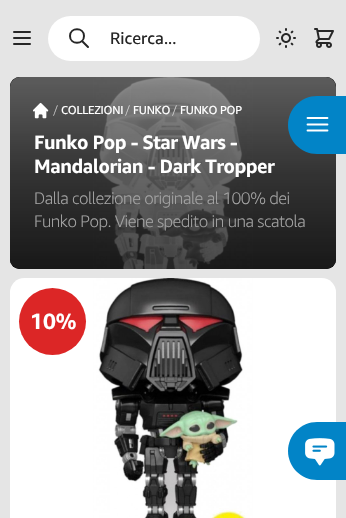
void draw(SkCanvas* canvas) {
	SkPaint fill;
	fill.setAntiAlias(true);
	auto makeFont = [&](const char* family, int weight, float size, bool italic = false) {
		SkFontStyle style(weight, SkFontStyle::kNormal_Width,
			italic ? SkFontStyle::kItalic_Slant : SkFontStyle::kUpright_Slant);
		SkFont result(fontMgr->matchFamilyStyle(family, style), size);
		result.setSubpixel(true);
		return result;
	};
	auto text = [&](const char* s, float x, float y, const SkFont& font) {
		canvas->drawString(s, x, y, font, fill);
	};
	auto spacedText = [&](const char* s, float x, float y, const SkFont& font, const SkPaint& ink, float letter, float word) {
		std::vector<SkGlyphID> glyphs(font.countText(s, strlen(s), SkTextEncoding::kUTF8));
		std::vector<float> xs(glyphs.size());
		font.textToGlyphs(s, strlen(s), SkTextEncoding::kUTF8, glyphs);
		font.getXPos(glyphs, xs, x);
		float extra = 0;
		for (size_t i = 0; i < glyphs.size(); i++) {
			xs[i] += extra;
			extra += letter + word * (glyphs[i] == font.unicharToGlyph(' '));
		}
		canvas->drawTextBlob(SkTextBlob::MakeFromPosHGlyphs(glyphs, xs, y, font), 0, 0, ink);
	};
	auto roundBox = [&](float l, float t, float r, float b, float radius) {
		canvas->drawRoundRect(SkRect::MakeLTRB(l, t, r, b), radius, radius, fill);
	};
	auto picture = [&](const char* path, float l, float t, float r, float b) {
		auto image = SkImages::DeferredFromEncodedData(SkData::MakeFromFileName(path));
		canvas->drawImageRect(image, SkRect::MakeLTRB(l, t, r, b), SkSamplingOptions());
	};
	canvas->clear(0xFFE5E5E5);
	fill.setStyle(SkPaint::kStroke_Style);
	fill.setStrokeWidth(2);
	fill.setStrokeCap(SkPaint::kRound_Cap);
	fill.setStrokeJoin(SkPaint::kRound_Join);
	fill.setColor(0xFF262626);
	canvas->drawPath(SkPathBuilder().moveTo(14, 32).lineTo(30, 32).moveTo(14, 38).lineTo(30, 38).moveTo(14, 44).lineTo(30, 44).detach(), fill);
	fill.setStyle(SkPaint::kFill_Style);
	fill.setColor(0xFFFFFFFF);
	roundBox(48, 16, 260, 61, 22.5f);
	fill.setStyle(SkPaint::kStroke_Style);
	fill.setColor(0xFF262626);
	canvas->drawPath(SkPathBuilder().moveTo(88, 47).lineTo(82, 41).moveTo(84, 36).cubicTo(84, 45, 70, 45, 70, 36).cubicTo(70, 27, 84, 27, 84, 36).close().detach(), fill);
	picture("image0.png", 276, 28, 296, 48);
	picture("image1.png", 314, 28, 334, 48);
	fill.setStyle(SkPaint::kFill_Style);
	roundBox(10, 77, 336, 269, 10);
	picture("image2.png", 10, 77, 336, 269);
	{
		const SkColor colors[] = {0xCC737373, 0xCC404040, 0xCC1E1E1E};
		const float stops[] = {0, 0.5f, 1};
		const SkPoint ends[] = {{173, 77}, {173, 269}};
		fill.setShader(SkGradientShader::MakeLinear(ends, colors, stops, 3, SkTileMode::kClamp));
		fill.setAlpha(255);
	}
	roundBox(10, 77, 336, 269, 10);
	picture("image3.png", 33, 102, 49, 119);
	fill.setShader(nullptr);
	fill.setColor(0xFF0284C7);
	canvas->drawPath(SkPathBuilder().moveTo(317, 96).lineTo(346, 96).lineTo(346, 154).lineTo(317, 154).cubicTo(301, 154, 288, 141, 288, 125).cubicTo(288, 109, 301, 96, 317, 96).close().detach(), fill);
	fill.setStyle(SkPaint::kStroke_Style);
	fill.setStrokeWidth(1.8f);
	fill.setColor(0xFFFFFFFF);
	canvas->drawPath(SkPathBuilder().moveTo(307.5f, 118).lineTo(327.5f, 118).moveTo(307.5f, 124.5f).lineTo(327.5f, 124.5f).moveTo(307.5f, 130.5f).lineTo(327.5f, 130.5f).detach(), fill);
	picture("image4.png", 10, 278, 336, 518);
	fill.setStyle(SkPaint::kFill_Style);
	fill.setColor(0xFFDC2626);
	canvas->drawCircle(52.5f, 321.5f, 33.5f, fill);
	fill.setColor(0xFF0284C7);
	canvas->drawPath(SkPathBuilder().moveTo(317, 422).lineTo(346, 422).lineTo(346, 480).lineTo(317, 480).cubicTo(301, 480, 288, 467, 288, 451).cubicTo(288, 435, 301, 422, 317, 422).close().detach(), fill);
	picture("image5.png", 305, 438, 335, 466);
	auto font1 = makeFont("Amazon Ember", 400, 16.75f);
	fill.setColor(0xFF262626);
	text("Ricerca...", 110, 44, font1);
	auto font2 = makeFont("Amazon Ember", 300, 11.5f);
	fill.setColor(0xFFCACACA);
	spacedText("/", 53, 114, font2, fill, -0.25f, 0);
	auto font3 = makeFont("Amazon Ember", 400, 11.5f);
	fill.setColor(0xFFFFFFFF);
	spacedText("COLLEZIONI", 61, 114, font3, fill, -0.25f, 0);
	fill.setColor(0xFFD5D5D5);
	spacedText("/", 125, 114, font2, fill, -0.25f, 0);
	fill.setColor(0xFFFFFFFF);
	spacedText("FUNKO", 133, 114, font3, fill, -0.25f, 0);
	fill.setColor(0xFFD5D5D5);
	spacedText("/", 172, 114, font2, fill, -0.25f, 0);
	fill.setColor(0xFFFFFFFF);
	spacedText("FUNKO POP", 180, 114, font3, fill, -0.25f, 0);
	auto font4 = makeFont("Amazon Ember", 700, 19.25f);
	spacedText("Funko Pop - Star Wars -", 34, 149, font4, fill, -0.5f, 0);
	spacedText("Mandalorian - Dark Tropper", 34, 173, font4, fill, -0.5f, 0);
	auto font5 = makeFont("Amazon Ember", 300, 16.75f);
	fill.setColor(0xFFA3A3A3);
	spacedText("Dalla collezione originale al 100% dei", 34, 204, font5, fill, -0.5f, 0);
	spacedText("Funko Pop. Viene spedito in una scatola", 34, 227, font5, fill, -0.5f, 0);
	auto font6 = makeFont("Amazon Ember", 700, 22);
	fill.setColor(0xFFFFFFFF);
	text("10%", 30, 329, font6);
}
